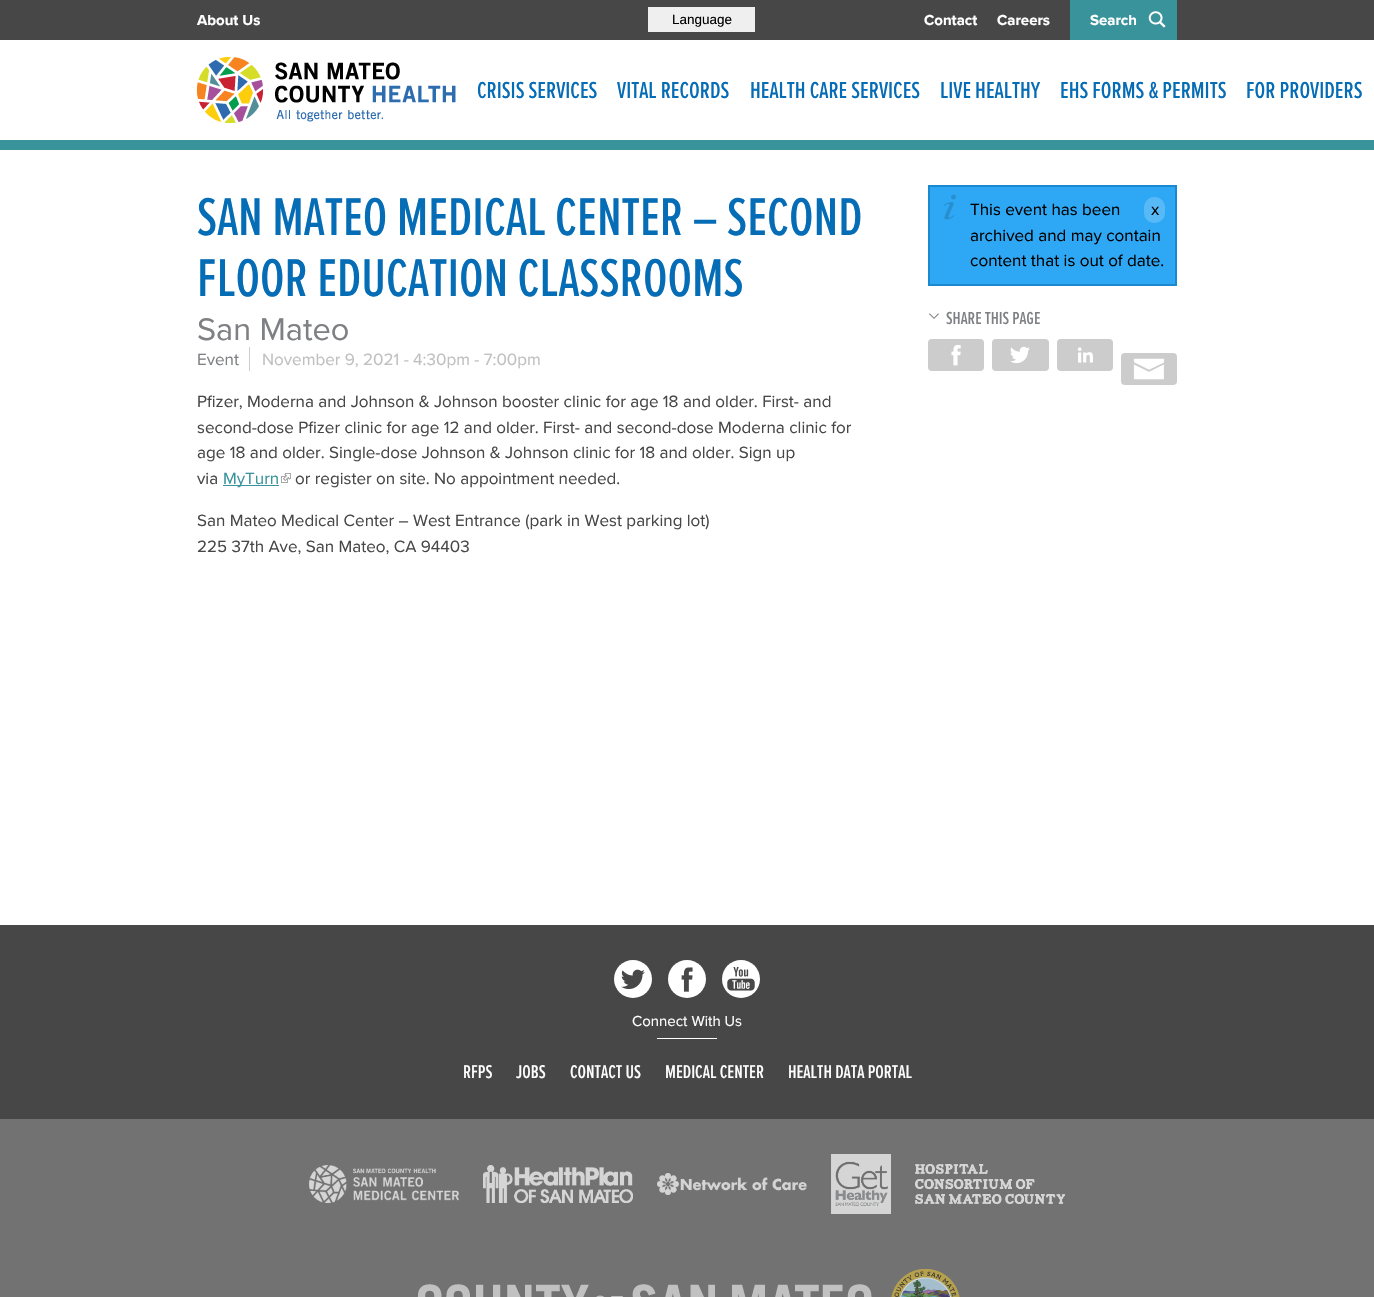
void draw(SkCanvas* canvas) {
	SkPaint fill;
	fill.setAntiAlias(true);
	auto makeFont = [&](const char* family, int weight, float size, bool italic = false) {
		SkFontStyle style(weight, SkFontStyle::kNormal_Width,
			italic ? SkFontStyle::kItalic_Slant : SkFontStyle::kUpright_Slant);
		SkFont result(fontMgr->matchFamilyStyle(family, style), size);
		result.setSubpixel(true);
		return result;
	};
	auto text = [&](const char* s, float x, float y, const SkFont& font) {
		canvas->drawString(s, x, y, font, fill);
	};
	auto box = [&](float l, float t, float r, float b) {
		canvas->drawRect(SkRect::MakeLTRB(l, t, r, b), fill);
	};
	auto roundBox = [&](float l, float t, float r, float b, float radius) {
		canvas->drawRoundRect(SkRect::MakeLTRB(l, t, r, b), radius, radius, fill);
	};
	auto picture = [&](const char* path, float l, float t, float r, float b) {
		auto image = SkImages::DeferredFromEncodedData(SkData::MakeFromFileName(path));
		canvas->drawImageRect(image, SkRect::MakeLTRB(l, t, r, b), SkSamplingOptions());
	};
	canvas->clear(0xFFFFFFFF);
	fill.setColor(0xFF474747);
	box(0, 0, 1374, 40);
	fill.setColor(0xFF38939B);
	box(0, 140, 1374, 150);
	fill.setColor(0xFFEFEFEF);
	box(648, 7, 755, 32);
	fill.setColor(0xFF38939B);
	box(1070, 0, 1177, 40);
	picture("image0.png", 1148, 11, 1166, 28);
	picture("image1.png", 196, 57, 456, 123);
	fill.setColor(0xFFCCCCCC);
	box(249, 347, 250, 371);
	fill.setColor(0xFF38939B);
	box(223, 485, 279, 486);
	picture("image2.png", 281, 473, 291, 483);
	fill.setColor(0xFF2EA8F5);
	box(930, 187, 1175, 284);
	picture("image3.png", 944, 194, 956, 220);
	fill.setStyle(SkPaint::kStroke_Style);
	fill.setStrokeWidth(2);
	fill.setColor(0xFF1A89CF);
	canvas->drawRect(SkRect::MakeLTRB(929, 186, 1176, 285), fill);
	fill.setStyle(SkPaint::kFill_Style);
	fill.setColor(0xFF58B9F7);
	roundBox(1144, 197, 1165, 223, 10);
	picture("image4.png", 929, 313, 939, 319);
	fill.setColor(0xFFCCCCCC);
	roundBox(928, 339, 984, 371, 4);
	picture("image5.png", 951, 345, 961, 366);
	roundBox(992, 339, 1049, 371, 4);
	picture("image6.png", 1010, 346, 1030, 364);
	roundBox(1057, 339, 1113, 371, 4);
	picture("image7.png", 1077, 347, 1093, 363);
	roundBox(1121, 353, 1177, 385, 4);
	picture("image8.png", 1133, 358, 1164, 380);
	fill.setColor(0xFF727272);
	box(0, 1119, 1374, 1297);
	fill.setColor(0xFF474747);
	box(0, 925, 1374, 1119);
	fill.setColor(0xFFFFFFFF);
	canvas->drawCircle(633, 979, 19, fill);
	picture("image9.png", 621, 969, 645, 989);
	canvas->drawCircle(687, 979, 19, fill);
	picture("image10.png", 681, 967, 693, 992);
	canvas->drawCircle(741, 979, 19, fill);
	picture("image11.png", 727, 967, 755, 991);
	box(657, 1038, 717, 1039);
	picture("image12.png", 309, 1165, 459, 1203);
	picture("image13.png", 483, 1165, 633, 1203);
	picture("image14.png", 657, 1173, 807, 1195);
	picture("image15.png", 831, 1154, 891, 1214);
	picture("image16.png", 915, 1164, 1065, 1204);
	picture("image17.png", 417, 1269, 960, 1297);
	auto font1 = makeFont("Proxima Nova", 700, 15);
	text("About Us", 197, 25, font1);
	text("Contact", 924, 25, font1);
	text("Careers", 997, 25, font1);
	auto font2 = makeFont("Liberation Sans", 400, 13.5f);
	fill.setColor(0xFF000000);
	text("Language", 672, 24, font2);
	fill.setColor(0xFFFFFFFF);
	text("Search", 1090, 25, font1);
	auto font3 = makeFont("Proxima Nova", 500, 24);
	fill.setColor(0xFF056CB6);
	text("CRISIS SERVICES", 477, 98, font3);
	text("VITAL RECORDS", 617, 98, font3);
	text("HEALTH CARE SERVICES", 750, 98, font3);
	text("LIVE HEALTHY", 940, 98, font3);
	text("EHS FORMS & PERMITS", 1060, 98, font3);
	text("FOR PROVIDERS", 1246, 98, font3);
	auto font4 = makeFont("Proxima Nova", 500, 55);
	text("SAN MATEO MEDICAL CENTER – SECOND", 197, 235, font4);
	text("FLOOR EDUCATION CLASSROOMS", 197, 296, font4);
	auto font5 = makeFont("Proxima Nova", 400, 32.5f);
	fill.setColor(0xFF7E8083);
	text("San Mateo", 197, 340, font5);
	auto font6 = makeFont("Proxima Nova", 400, 17);
	text("Event", 197, 365, font6);
	fill.setColor(0xFFBFC0C1);
	text("November 9, 2021 - 4:30pm - 7:00pm", 262, 365, font6);
	fill.setColor(0xFF474747);
	text("Pfizer, Moderna and Johnson & Johnson booster clinic for age 18 and older. First- and", 197, 407, font6);
	text("second-dose Pfizer clinic for age 12 and older. First- and second-dose Moderna clinic for", 197, 433, font6);
	text("age 18 and older. Single-dose Johnson & Johnson clinic for 18 and older. Sign up", 197, 458, font6);
	text("via", 197, 484, font6);
	fill.setColor(0xFF38939B);
	text("MyTurn", 223, 484, font6);
	fill.setColor(0xFF474747);
	text("or register on site. No appointment needed.", 295, 484, font6);
	text("San Mateo Medical Center – West Entrance (park in West parking lot)", 197, 526, font6);
	text("225 37th Ave, San Mateo, CA 94403", 197, 552, font6);
	fill.setColor(0xFF000000);
	text("This event has been", 970, 215, font6);
	text("x", 1151, 215, font6);
	text("archived and may contain", 970, 241, font6);
	text("content that is out of date.", 970, 266, font6);
	auto font7 = makeFont("Proxima Nova", 500, 18);
	fill.setColor(0xFF7E8083);
	text("SHARE THIS PAGE", 946, 324, font7);
	auto font8 = makeFont("Proxima Nova", 400, 15);
	fill.setColor(0xFFFFFFFF);
	text("Connect With Us", 632, 1026, font8);
	auto font9 = makeFont("Proxima Nova", 500, 19);
	text("RFPS", 463, 1078, font9);
	text("JOBS", 516, 1078, font9);
	text("CONTACT US", 570, 1078, font9);
	text("MEDICAL CENTER", 665, 1078, font9);
	text("HEALTH DATA PORTAL", 788, 1078, font9);
}
